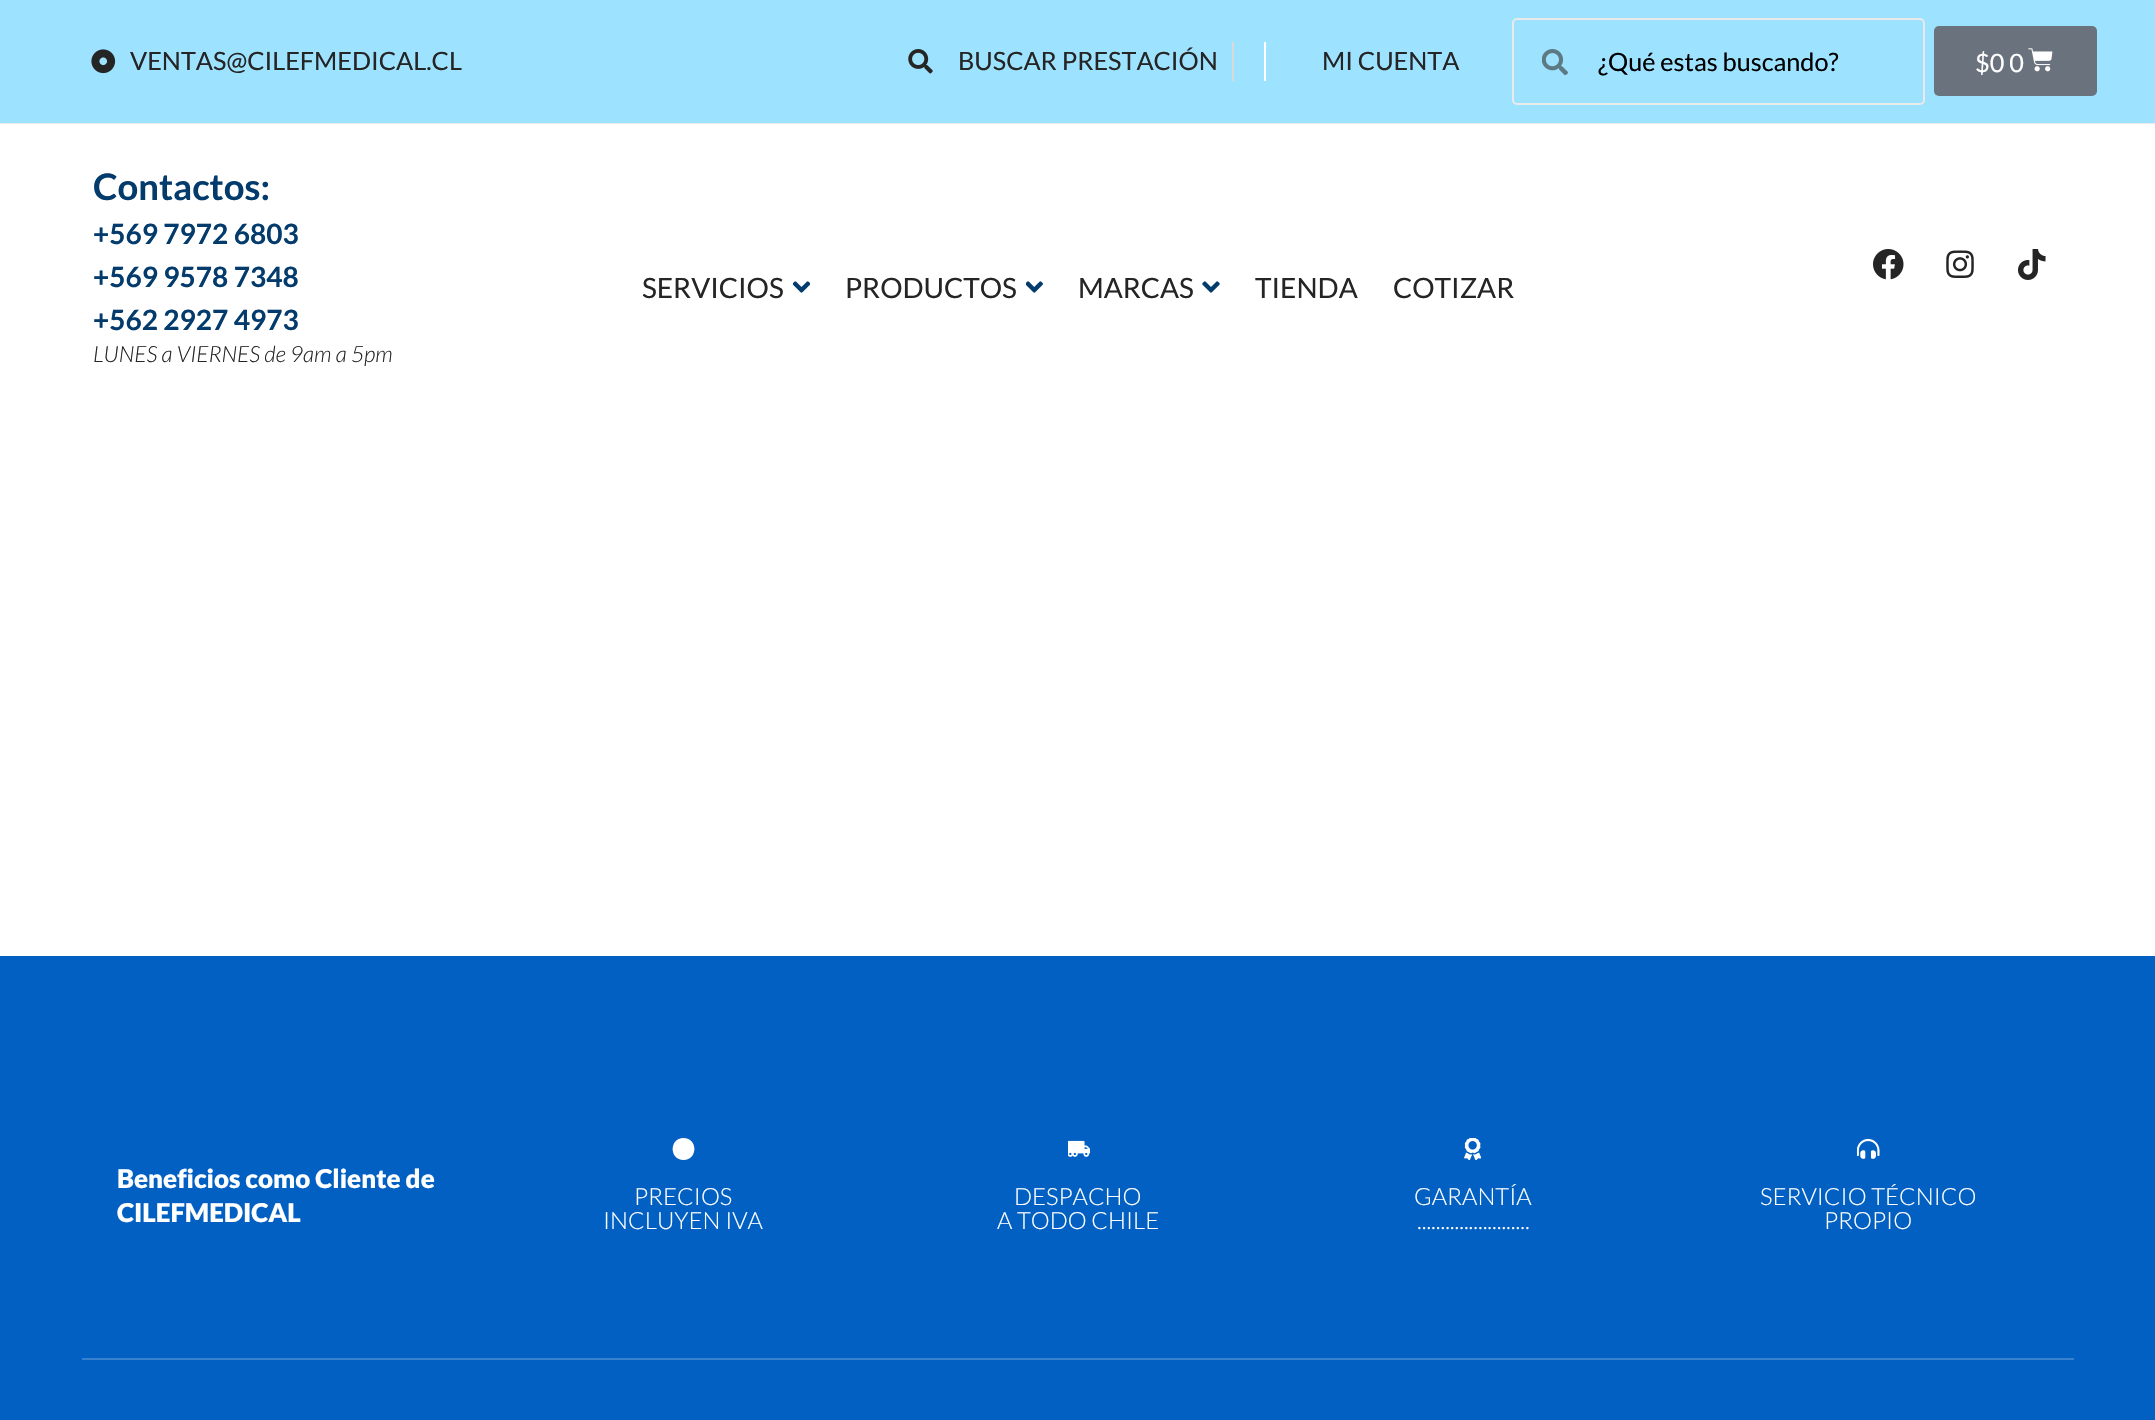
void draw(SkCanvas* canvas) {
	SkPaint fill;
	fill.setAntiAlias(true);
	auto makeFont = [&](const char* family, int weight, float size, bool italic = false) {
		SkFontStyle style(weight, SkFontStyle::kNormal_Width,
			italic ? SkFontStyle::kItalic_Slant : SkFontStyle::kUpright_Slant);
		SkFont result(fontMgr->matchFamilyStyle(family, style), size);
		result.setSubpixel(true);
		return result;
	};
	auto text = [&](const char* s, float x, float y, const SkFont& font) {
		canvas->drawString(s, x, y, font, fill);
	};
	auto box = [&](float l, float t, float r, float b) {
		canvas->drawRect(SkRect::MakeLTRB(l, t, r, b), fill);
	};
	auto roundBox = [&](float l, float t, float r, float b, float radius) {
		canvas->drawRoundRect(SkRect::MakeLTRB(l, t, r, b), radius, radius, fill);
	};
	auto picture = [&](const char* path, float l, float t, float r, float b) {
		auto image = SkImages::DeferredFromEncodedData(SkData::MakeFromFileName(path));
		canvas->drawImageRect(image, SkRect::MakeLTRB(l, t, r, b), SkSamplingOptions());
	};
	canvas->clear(0xFFFFFFFF);
	fill.setColor(0xFF9DE2FF);
	box(0, 0, 2155, 123);
	fill.setColor(0xFFEAEAEA);
	box(0, 123, 2155, 124);
	picture("image0.png", 91, 49, 116, 74);
	fill.setColor(0xFFFFFFFF);
	box(1264, 42, 1266, 81);
	picture("image1.png", 908, 49, 933, 74);
	fill.setColor(0xFFD9D9D9);
	box(1232, 42, 1234, 81);
	fill.setStyle(SkPaint::kStroke_Style);
	fill.setStrokeWidth(2);
	fill.setColor(0xFFEAEAEA);
	canvas->drawRoundRect(SkRect::MakeLTRB(1513, 19, 1924, 104), 4, 4, fill);
	picture("image2.png", 1542, 49, 1568, 75);
	fill.setStyle(SkPaint::kFill_Style);
	fill.setColor(0xFF69727D);
	roundBox(1934, 26, 2097, 96, 5);
	picture("image3.png", 2028, 48, 2053, 72);
	picture("image4.png", 1873, 249, 1904, 280);
	picture("image5.png", 1946, 250, 1974, 278);
	picture("image6.png", 2018, 249, 2046, 280);
	picture("image7.png", 793, 281, 810, 293);
	picture("image8.png", 1026, 281, 1043, 293);
	picture("image9.png", 1202, 281, 1220, 293);
	fill.setColor(0xFF0260C2);
	box(0, 956, 2155, 1420);
	fill.setColor(0xFFFFFFFF);
	canvas->drawPath(SkPathBuilder().moveTo(683.5f, 1138).cubicTo(669, 1138, 669, 1160, 683.5f, 1160).cubicTo(698, 1160, 698, 1138, 683.5f, 1138).close().detach(), fill);
	picture("image10.png", 1068, 1140, 1090, 1157);
	picture("image11.png", 1464, 1138, 1482, 1160);
	picture("image12.png", 1857, 1138, 1880, 1159);
	fill.setColor(0xFF3781CF);
	box(82, 1358, 2074, 1360);
	auto font1 = makeFont("Lato", 400, 25.25f);
	fill.setColor(0xFF252525);
	text("VENTAS@CILEFMEDICAL.CL", 130, 70, font1);
	text("BUSCAR PRESTACIÓN", 958, 70, font1);
	text("MI CUENTA", 1322, 70, font1);
	fill.setColor(0xFF000000);
	text("¿Qué estas buscando?", 1598, 71, font1);
	fill.setColor(0xFFFFFFFF);
	text("$0 0", 1975, 72, font1);
	auto font2 = makeFont("Lato", 700, 36.5f);
	fill.setColor(0xFF033B6C);
	text("Contactos:", 93, 200, font2);
	auto font3 = makeFont("Lato", 700, 28);
	text("+569 7972 6803", 93, 244, font3);
	text("+569 9578 7348", 93, 287, font3);
	text("+562 2927 4973", 93, 330, font3);
	auto font4 = makeFont("Lato", 300, 22.4f, true);
	fill.setColor(0xFF252525);
	text("LUNES a VIERNES de 9am a 5pm", 93, 362, font4);
	auto font5 = makeFont("Lato", 400, 28);
	text("SERVICIOS", 642, 298, font5);
	text("PRODUCTOS", 845, 298, font5);
	text("MARCAS", 1078, 298, font5);
	text("TIENDA", 1255, 298, font5);
	text("COTIZAR", 1393, 298, font5);
	auto font6 = makeFont("Lato", 900, 25.9f);
	fill.setColor(0xFFFFFFFF);
	text("Beneficios como Cliente de", 117, 1188, font6);
	text("CILEFMEDICAL", 117, 1222, font6);
	auto font7 = makeFont("Lato", 300, 23.75f);
	text("PRECIOS", 634, 1205, font7);
	text("INCLUYEN IVA", 603, 1229, font7);
	text("DESPACHO", 1014, 1205, font7);
	text("A TODO CHILE", 997, 1229, font7);
	text("GARANTÍA", 1414, 1205, font7);
	text("........................", 1417, 1229, font7);
	text("SERVICIO TÉCNICO", 1760, 1205, font7);
	text("PROPIO", 1824, 1229, font7);
}
